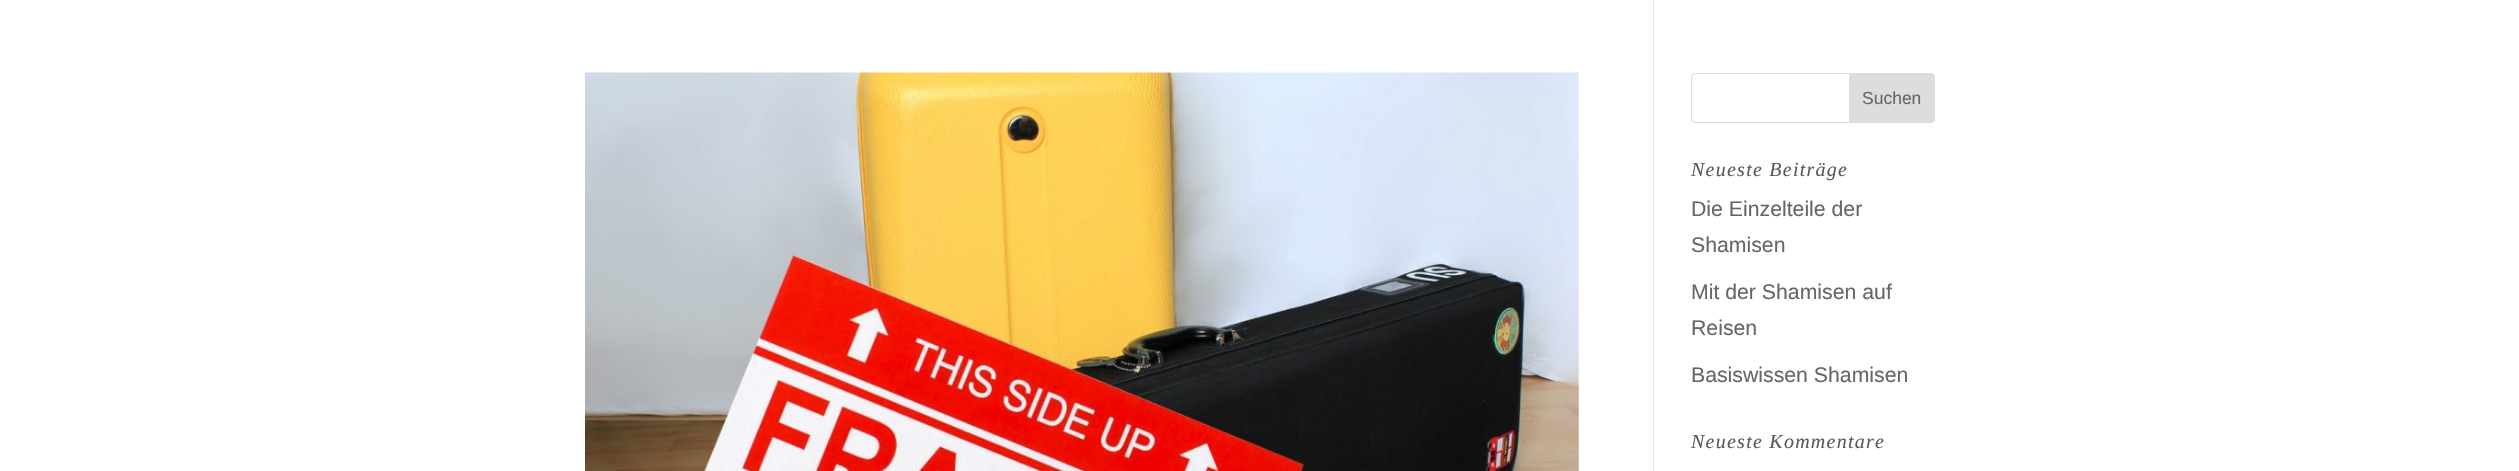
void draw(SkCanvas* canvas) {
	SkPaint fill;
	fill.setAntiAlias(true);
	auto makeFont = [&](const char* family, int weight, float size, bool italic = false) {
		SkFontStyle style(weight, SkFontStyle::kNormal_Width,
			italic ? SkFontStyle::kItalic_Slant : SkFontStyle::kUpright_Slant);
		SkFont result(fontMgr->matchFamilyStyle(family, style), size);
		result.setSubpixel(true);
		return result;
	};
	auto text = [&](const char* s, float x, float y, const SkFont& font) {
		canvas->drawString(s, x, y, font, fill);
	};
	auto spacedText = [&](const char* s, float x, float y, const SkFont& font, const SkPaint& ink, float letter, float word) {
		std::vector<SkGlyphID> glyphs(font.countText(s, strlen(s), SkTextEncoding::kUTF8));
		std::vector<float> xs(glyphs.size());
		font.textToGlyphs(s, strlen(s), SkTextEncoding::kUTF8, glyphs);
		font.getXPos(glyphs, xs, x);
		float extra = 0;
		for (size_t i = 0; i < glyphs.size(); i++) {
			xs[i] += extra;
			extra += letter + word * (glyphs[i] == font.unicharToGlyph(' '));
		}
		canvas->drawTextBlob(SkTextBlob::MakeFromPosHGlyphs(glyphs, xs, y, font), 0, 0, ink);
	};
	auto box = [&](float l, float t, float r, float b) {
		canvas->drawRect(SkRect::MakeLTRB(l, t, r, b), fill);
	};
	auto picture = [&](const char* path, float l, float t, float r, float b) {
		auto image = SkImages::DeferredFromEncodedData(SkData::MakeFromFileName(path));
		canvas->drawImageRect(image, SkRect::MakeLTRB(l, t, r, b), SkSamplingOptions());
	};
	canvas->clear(0xFFFFFFFF);
	fill.setColor(0xFFE2E2E2);
	box(1653, 0, 1654, 471);
	picture("image0.png", 585, 72, 1579, 471);
	fill.setStyle(SkPaint::kStroke_Style);
	fill.setStrokeWidth(1);
	fill.setColor(0xFFDDDDDD);
	canvas->drawRoundRect(SkRect::MakeLTRB(1691.5f, 73.5f, 1934.5f, 122.5f), 3.5f, 3.5f, fill);
	fill.setStyle(SkPaint::kFill_Style);
	canvas->drawPath(SkPathBuilder().moveTo(1849.5f, 73.5f).lineTo(1931, 73.5f).cubicTo(1933, 73.5f, 1934.5f, 75, 1934.5f, 77).lineTo(1934.5f, 119).cubicTo(1934.5f, 121, 1933, 122.5f, 1931, 122.5f).lineTo(1849.5f, 122.5f).close().detach(), fill);
	fill.setStyle(SkPaint::kStroke_Style);
	canvas->drawPath(SkPathBuilder().moveTo(1849.5f, 73.5f).lineTo(1931, 73.5f).cubicTo(1933, 73.5f, 1934.5f, 75, 1934.5f, 77).lineTo(1934.5f, 119).cubicTo(1934.5f, 121, 1933, 122.5f, 1931, 122.5f).lineTo(1849.5f, 122.5f).close().detach(), fill);
	auto font1 = makeFont("Liberation Sans", 400, 17.5f);
	fill.setStyle(SkPaint::kFill_Style);
	fill.setColor(0xFF666666);
	text("Suchen", 1862, 104, font1);
	auto font2 = makeFont("Liberation Serif", 400, 20, true);
	fill.setColor(0xFF595959);
	spacedText("Neueste Beiträge", 1691, 176, font2, fill, 1.25f, 0);
	auto font3 = makeFont("Liberation Sans", 400, 21.25f);
	fill.setColor(0xFF666666);
	text("Die Einzelteile der", 1691, 216, font3);
	text("Shamisen", 1691, 252, font3);
	text("Mit der Shamisen auf", 1691, 299, font3);
	text("Reisen", 1691, 335, font3);
	text("Basiswissen Shamisen", 1691, 382, font3);
	fill.setColor(0xFF595959);
	spacedText("Neueste Kommentare", 1691, 448, font2, fill, 1.25f, 0);
}
